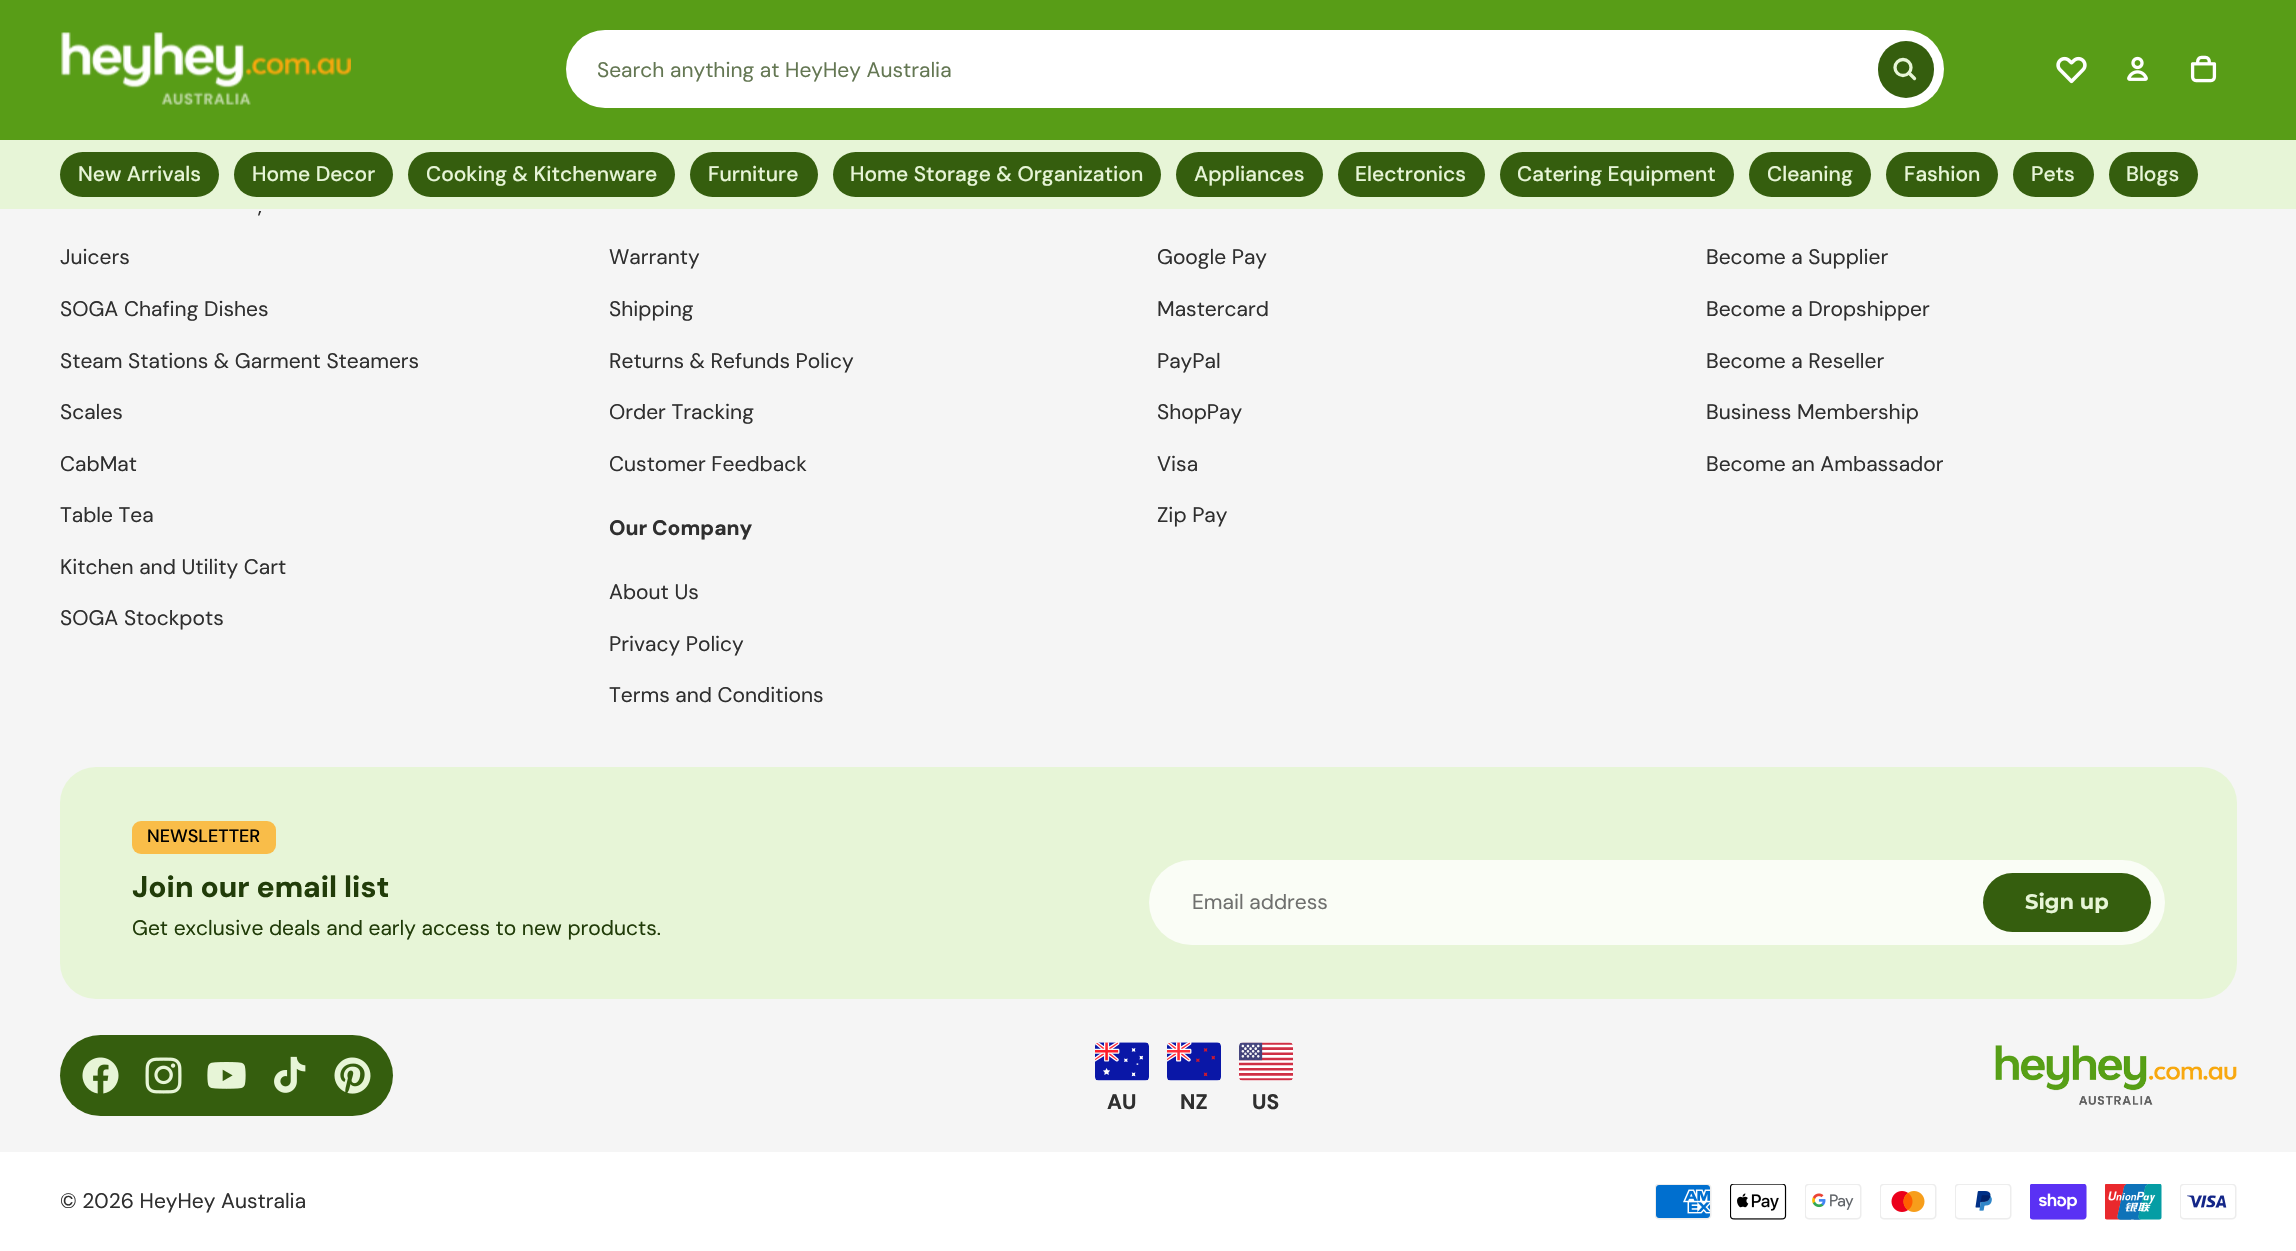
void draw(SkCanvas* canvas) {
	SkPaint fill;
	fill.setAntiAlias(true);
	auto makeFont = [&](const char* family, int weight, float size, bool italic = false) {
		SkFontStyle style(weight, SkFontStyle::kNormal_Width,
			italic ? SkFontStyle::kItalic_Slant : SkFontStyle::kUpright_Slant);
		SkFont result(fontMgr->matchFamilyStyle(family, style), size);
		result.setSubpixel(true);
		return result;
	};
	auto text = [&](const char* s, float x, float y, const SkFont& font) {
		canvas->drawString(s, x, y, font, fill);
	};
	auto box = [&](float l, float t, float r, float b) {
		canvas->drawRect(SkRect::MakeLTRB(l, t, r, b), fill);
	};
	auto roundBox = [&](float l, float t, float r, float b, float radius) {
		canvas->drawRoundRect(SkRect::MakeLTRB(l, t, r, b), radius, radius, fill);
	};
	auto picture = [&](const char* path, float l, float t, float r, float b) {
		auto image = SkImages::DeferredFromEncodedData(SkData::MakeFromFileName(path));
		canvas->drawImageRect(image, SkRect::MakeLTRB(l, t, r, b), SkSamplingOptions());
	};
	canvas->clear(0xFFFFFFFF);
	fill.setColor(0xFF589D17);
	box(0, 0, 2296, 140);
	picture("image0.png", 61, 32, 351, 105);
	fill.setColor(0xFFFFFFFF);
	roundBox(566, 30, 1944, 108, 39);
	fill.setColor(0xFF355E0E);
	roundBox(1878, 41, 1934, 98, 28);
	fill.setStyle(SkPaint::kStroke_Style);
	fill.setStrokeWidth(3.3f);
	fill.setColor(0xFFE7F5D7);
	canvas->drawCircle(1903, 67.5f, 8, fill);
	fill.setStrokeCap(SkPaint::kRound_Cap);
	fill.setStrokeJoin(SkPaint::kRound_Join);
	canvas->drawPath(SkPathBuilder().moveTo(1909, 73).lineTo(1914.5f, 78.5f).detach(), fill);
	picture("image1.png", 2056, 56, 2087, 84);
	picture("image2.png", 2127, 56, 2148, 81);
	picture("image3.png", 2190, 55, 2217, 83);
	fill.setStyle(SkPaint::kFill_Style);
	box(0, 140, 2296, 209);
	fill.setColor(0xFF355E0E);
	roundBox(60, 152, 219, 197, 22.5f);
	roundBox(234, 152, 393, 197, 22.5f);
	roundBox(408, 152, 675, 197, 22.5f);
	roundBox(690, 152, 818, 197, 22.5f);
	roundBox(833, 152, 1161, 197, 22.5f);
	roundBox(1176, 152, 1323, 197, 22.5f);
	roundBox(1338, 152, 1485, 197, 22.5f);
	roundBox(1500, 152, 1734, 197, 22.5f);
	roundBox(1749, 152, 1871, 197, 22.5f);
	roundBox(1886, 152, 1998, 197, 22.5f);
	roundBox(2013, 152, 2094, 197, 22.5f);
	roundBox(2109, 152, 2198, 197, 22.5f);
	fill.setColor(0xFFF5F5F5);
	box(0, 209, 2296, 1152);
	fill.setColor(0xFFE7F5D7);
	roundBox(60, 767, 2237, 999, 36);
	fill.setColor(0xFFF9BD49);
	roundBox(132, 821, 276, 854, 9);
	fill.setColor(0xFFFAFDF6);
	roundBox(1149, 860, 2165, 945, 42.5f);
	fill.setColor(0xFF355E0E);
	roundBox(1983, 873, 2151, 932, 29.5f);
	roundBox(60, 1035, 393, 1116, 40.5f);
	picture("image4.png", 82, 1057, 119, 1094);
	picture("image5.png", 145, 1057, 182, 1094);
	picture("image6.png", 207, 1062, 246, 1089);
	picture("image7.png", 274, 1056, 306, 1093);
	picture("image8.png", 334, 1057, 371, 1094);
	picture("image9.png", 1095, 1042, 1149, 1081);
	picture("image10.png", 1167, 1042, 1221, 1081);
	picture("image11.png", 1239, 1042, 1293, 1081);
	picture("image12.png", 1995, 1045, 2237, 1105);
	picture("image13.png", 1655, 1184, 1712, 1220);
	picture("image14.png", 1730, 1184, 1787, 1220);
	picture("image15.png", 1805, 1184, 1862, 1220);
	picture("image16.png", 1880, 1184, 1937, 1220);
	picture("image17.png", 1955, 1184, 2012, 1220);
	picture("image18.png", 2030, 1184, 2087, 1220);
	picture("image19.png", 2105, 1184, 2162, 1220);
	picture("image20.png", 2180, 1184, 2237, 1220);
	auto font1 = makeFont("DM Sans", 400, 21);
	fill.setColor(0xFF647753);
	text("Search anything at HeyHey Australia", 597, 77, font1);
	auto font2 = makeFont("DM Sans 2", 500, 21);
	fill.setColor(0xFFE7F5D7);
	text("New Arrivals", 78, 181, font2);
	text("Home Decor", 252, 181, font2);
	text("Cooking & Kitchenware", 426, 181, font2);
	text("Furniture", 708, 181, font2);
	text("Home Storage & Organization", 850, 181, font2);
	text("Appliances", 1194, 181, font2);
	text("Electronics", 1355, 181, font2);
	text("Catering Equipment", 1517, 181, font2);
	text("Cleaning", 1767, 181, font2);
	text("Fashion", 1904, 181, font2);
	text("Pets", 2031, 181, font2);
	text("Blogs", 2126, 181, font2);
	fill.setColor(0xFF2F2F2F);
	text(",", 258, 213, font1);
	text("Juicers", 60, 264, font1);
	text("SOGA Chafing Dishes", 60, 316, font1);
	text("Steam Stations & Garment Steamers", 60, 368, font1);
	text("Scales", 60, 419, font1);
	text("CabMat", 60, 471, font1);
	text("Table Tea", 60, 522, font1);
	text("Kitchen and Utility Cart", 60, 574, font1);
	text("SOGA Stockpots", 60, 625, font1);
	text("Warranty", 609, 264, font1);
	text("Shipping", 609, 316, font1);
	text("Returns & Refunds Policy", 609, 368, font1);
	text("Order Tracking", 609, 419, font1);
	text("Customer Feedback", 609, 471, font1);
	auto font3 = makeFont("DM Sans", 800, 21);
	text("Our Company", 609, 535, font3);
	text("About Us", 609, 599, font1);
	text("Privacy Policy", 609, 651, font1);
	text("Terms and Conditions", 609, 702, font1);
	text("Google Pay", 1157, 264, font1);
	text("Mastercard", 1157, 316, font1);
	text("PayPal", 1157, 368, font1);
	text("ShopPay", 1157, 419, font1);
	text("Visa", 1157, 471, font1);
	text("Zip Pay", 1157, 522, font1);
	text("Become a Supplier", 1706, 264, font1);
	text("Become a Dropshipper", 1706, 316, font1);
	text("Become a Reseller", 1706, 368, font1);
	text("Business Membership", 1706, 419, font1);
	text("Become an Ambassador", 1706, 471, font1);
	auto font4 = makeFont("DM Sans", 500, 18);
	fill.setColor(0xFF000000);
	text("NEWSLETTER", 147, 842, font4);
	auto font5 = makeFont("DM Sans 2", 800, 30);
	fill.setColor(0xFF213C09);
	text("Join our email list", 132, 897, font5);
	text("Get exclusive deals and early access to new products.", 132, 935, font1);
	fill.setColor(0xFF6F706E);
	text("Email address", 1192, 909, font1);
	auto font6 = makeFont("Montserrat", 700, 21);
	fill.setColor(0xFFE7F5D7);
	text("Sign up", 2025, 909, font6);
	fill.setColor(0xFF2F2F2F);
	text("AU", 1107, 1109, font3);
	text("NZ", 1180, 1109, font3);
	text("US", 1252, 1109, font3);
	text("© 2026 HeyHey Australia", 60, 1208, font1);
}
